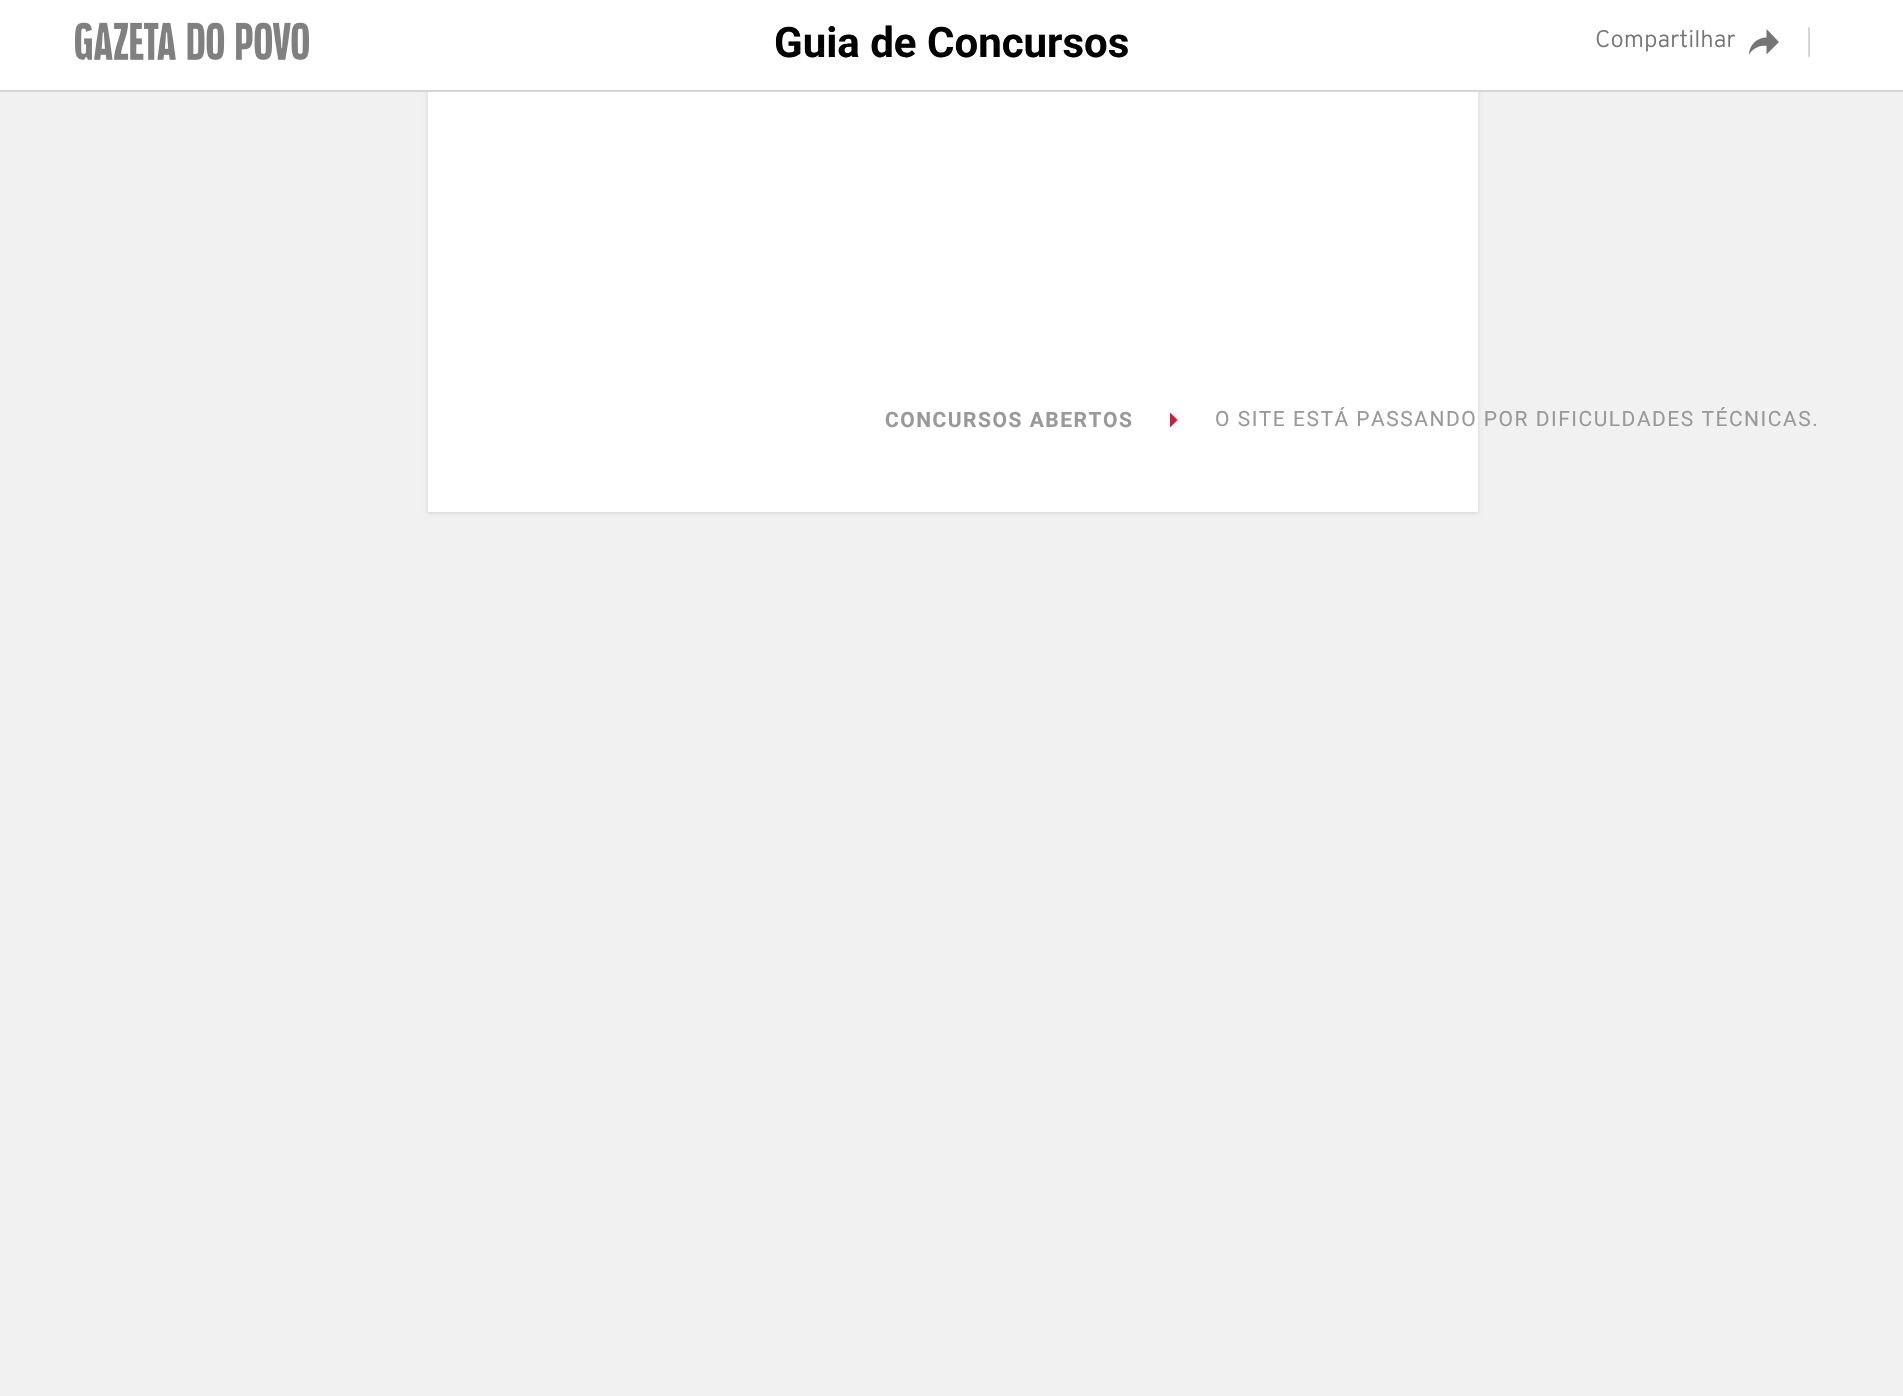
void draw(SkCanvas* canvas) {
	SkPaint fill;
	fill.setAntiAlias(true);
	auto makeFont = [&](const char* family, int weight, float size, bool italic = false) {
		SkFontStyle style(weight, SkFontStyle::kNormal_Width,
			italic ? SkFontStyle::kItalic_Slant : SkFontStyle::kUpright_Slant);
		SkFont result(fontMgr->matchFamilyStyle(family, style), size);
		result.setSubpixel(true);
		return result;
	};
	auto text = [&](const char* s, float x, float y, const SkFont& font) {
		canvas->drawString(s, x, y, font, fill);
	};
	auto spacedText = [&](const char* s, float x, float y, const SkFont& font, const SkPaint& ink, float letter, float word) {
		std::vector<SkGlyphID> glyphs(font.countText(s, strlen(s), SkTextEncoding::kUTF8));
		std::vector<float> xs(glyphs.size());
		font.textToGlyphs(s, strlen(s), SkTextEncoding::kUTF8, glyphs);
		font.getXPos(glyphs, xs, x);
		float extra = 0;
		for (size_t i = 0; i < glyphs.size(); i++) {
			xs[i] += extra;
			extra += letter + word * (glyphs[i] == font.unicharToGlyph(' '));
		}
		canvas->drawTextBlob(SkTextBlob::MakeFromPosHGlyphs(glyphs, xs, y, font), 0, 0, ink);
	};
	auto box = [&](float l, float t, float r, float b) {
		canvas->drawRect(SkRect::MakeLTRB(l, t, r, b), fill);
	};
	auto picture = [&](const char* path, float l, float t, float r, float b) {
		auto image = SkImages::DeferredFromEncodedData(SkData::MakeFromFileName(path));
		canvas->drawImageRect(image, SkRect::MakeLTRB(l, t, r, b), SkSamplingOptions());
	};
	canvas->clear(0xFFF1F1F1);
	fill.setColor(0x21000000);
	fill.setMaskFilter(SkMaskFilter::MakeBlur(kNormal_SkBlurStyle, 2));
	canvas->drawRect(SkRect::MakeLTRB(428, 77, 1478, 513), fill);
	fill.setMaskFilter(nullptr);
	fill.setColor(0xFFFFFFFF);
	box(428, 92, 1478, 512);
	box(0, 0, 1903, 90);
	fill.setColor(0xFFD6D6D6);
	box(0, 90, 1903, 92);
	picture("image0.png", 75, 22, 309, 60);
	fill.setColor(0xFF757575);
	canvas->drawPath(SkPathBuilder().moveTo(1779, 42).lineTo(1766.5f, 29).lineTo(1766.5f, 37.5f).cubicTo(1756.5f, 37.5f, 1749, 45.5f, 1749, 55).cubicTo(1752.5f, 48.5f, 1759.5f, 45, 1766.5f, 46).lineTo(1766.5f, 54.5f).close().detach(), fill);
	fill.setColor(0xFFD6D6D6);
	box(1808, 27, 1810, 57);
	fill.setColor(0xFFCA1D3C);
	canvas->drawPath(SkPathBuilder().moveTo(1170, 427.5f).lineTo(1170, 412.5f).lineTo(1177.5f, 420).close().detach(), fill);
	auto font1 = makeFont("Roboto", 700, 42);
	fill.setColor(0xFF000000);
	text("Guia de Concursos", 774, 57, font1);
	auto font2 = makeFont("Overpass", 300, 24);
	fill.setColor(0xFF757575);
	text("Compartilhar", 1595, 47, font2);
	auto font3 = makeFont("Roboto", 700, 21);
	fill.setColor(0xFF999999);
	spacedText("CONCURSOS ABERTOS", 885, 427, font3, fill, 1.5f, 0);
	auto font4 = makeFont("Roboto", 400, 21);
	spacedText("O SITE ESTÁ PASSANDO POR DIFICULDADES TÉCNICAS.", 1215, 426, font4, fill, 1.5f, 0);
}
